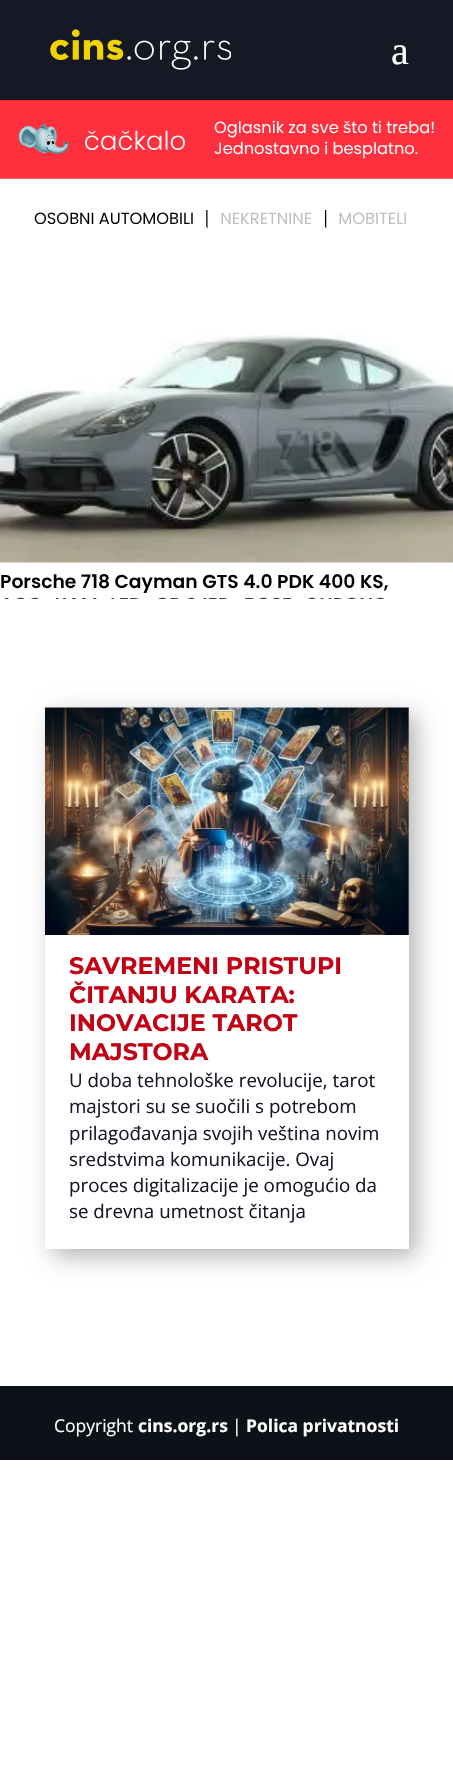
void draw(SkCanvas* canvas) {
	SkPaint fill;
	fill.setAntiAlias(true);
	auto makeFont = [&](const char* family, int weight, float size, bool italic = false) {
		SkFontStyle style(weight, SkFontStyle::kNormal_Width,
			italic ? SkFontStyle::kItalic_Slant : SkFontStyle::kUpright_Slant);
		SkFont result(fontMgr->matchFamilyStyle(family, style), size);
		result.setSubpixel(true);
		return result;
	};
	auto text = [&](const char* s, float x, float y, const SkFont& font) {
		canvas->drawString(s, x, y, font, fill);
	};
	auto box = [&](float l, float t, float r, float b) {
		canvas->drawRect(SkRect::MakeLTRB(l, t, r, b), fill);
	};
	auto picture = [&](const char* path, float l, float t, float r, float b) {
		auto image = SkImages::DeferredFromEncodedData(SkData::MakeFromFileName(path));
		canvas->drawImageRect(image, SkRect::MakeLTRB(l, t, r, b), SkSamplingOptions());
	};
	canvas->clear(0xFFFFFFFF);
	fill.setColor(0xFFE62B38);
	canvas->drawPath(SkPathBuilder().moveTo(0, 100).lineTo(0, 101).lineTo(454, 101).lineTo(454, 1).lineTo(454, 100).close().detach(), fill);
	fill.setColor(0xFF161925);
	box(0, 0, 453, 100);
	picture("image0.png", 50, 29, 231, 70);
	picture("image1.png", 0, 101, 453, 599);
	fill.setColor(0x4D000000);
	fill.setMaskFilter(SkMaskFilter::MakeBlur(kNormal_SkBlurStyle, 11));
	canvas->drawRect(SkRect::MakeLTRB(53, 715, 416, 1256), fill);
	fill.setMaskFilter(nullptr);
	fill.setColor(0xFFFFFFFF);
	box(45, 708, 409, 1249);
	picture("image2.png", 45, 707, 409, 935);
	fill.setColor(0xFF0F1119);
	box(0, 1386, 453, 1460);
	auto font1 = makeFont("Liberation Serif", 400, 40);
	fill.setColor(0xFFFDFFFC);
	text("a", 391, 64, font1);
	auto font2 = makeFont("Montserrat", 100, 23.75f);
	fill.setColor(0xFFC20114);
	text("SAVREMENI PRISTUPI", 69, 974, font2);
	text("ČITANJU KARATA:", 69, 1003, font2);
	text("INOVACIJE TAROT", 69, 1031, font2);
	text("MAJSTORA", 69, 1060, font2);
	auto font3 = makeFont("Open Sans", 400, 18.75f);
	fill.setColor(0xFF161925);
	text("U doba tehnološke revolucije, tarot", 69, 1087, font3);
	text("majstori su se suočili s potrebom", 69, 1113, font3);
	text("prilagođavanja svojih veština novim", 69, 1140, font3);
	text("sredstvima komunikacije. Ovaj", 69, 1166, font3);
	text("proces digitalizacije je omogućio da", 69, 1192, font3);
	text("se drevna umetnost čitanja", 69, 1218, font3);
	auto font4 = makeFont("Open Sans", 400, 17.5f);
	fill.setColor(0xFFFDFFFC);
	text("Copyright", 54, 1432, font4);
	auto font5 = makeFont("Open Sans", 700, 17.5f);
	text("cins.org.rs", 138, 1432, font5);
	text("|", 232, 1432, font4);
	text("Polica privatnosti", 246, 1432, font5);
}
